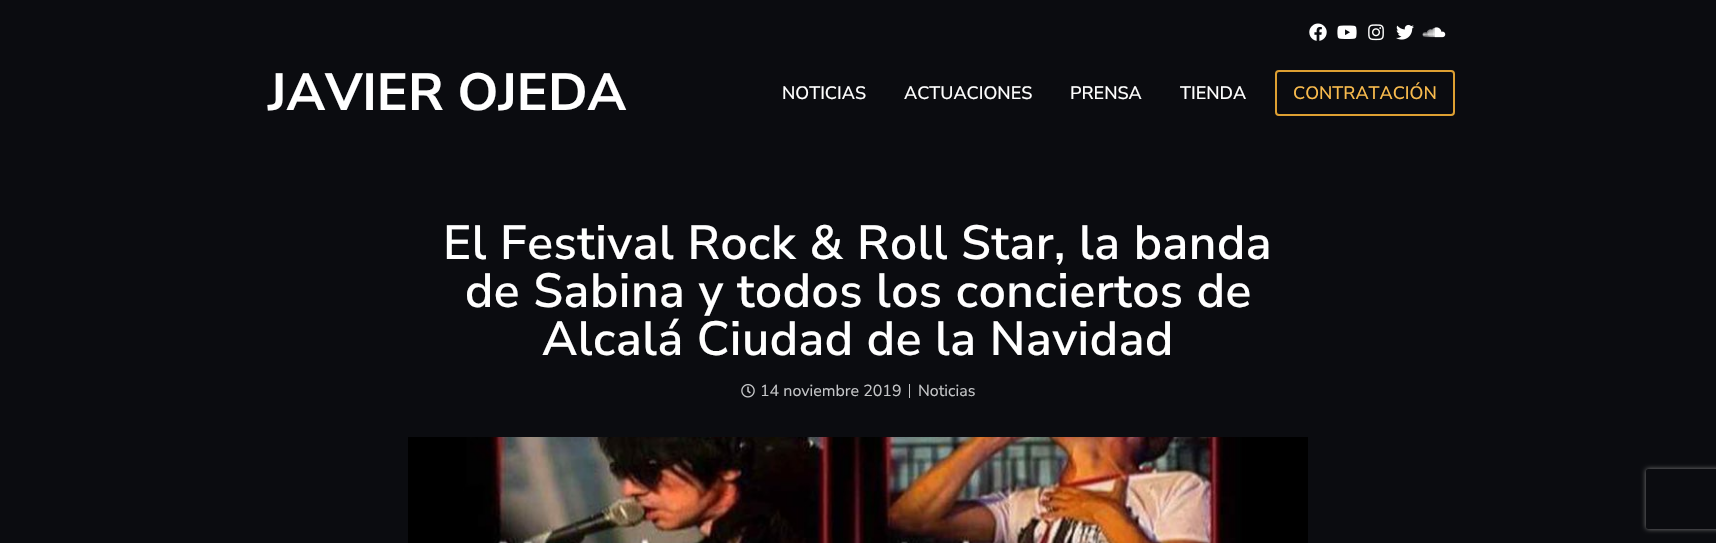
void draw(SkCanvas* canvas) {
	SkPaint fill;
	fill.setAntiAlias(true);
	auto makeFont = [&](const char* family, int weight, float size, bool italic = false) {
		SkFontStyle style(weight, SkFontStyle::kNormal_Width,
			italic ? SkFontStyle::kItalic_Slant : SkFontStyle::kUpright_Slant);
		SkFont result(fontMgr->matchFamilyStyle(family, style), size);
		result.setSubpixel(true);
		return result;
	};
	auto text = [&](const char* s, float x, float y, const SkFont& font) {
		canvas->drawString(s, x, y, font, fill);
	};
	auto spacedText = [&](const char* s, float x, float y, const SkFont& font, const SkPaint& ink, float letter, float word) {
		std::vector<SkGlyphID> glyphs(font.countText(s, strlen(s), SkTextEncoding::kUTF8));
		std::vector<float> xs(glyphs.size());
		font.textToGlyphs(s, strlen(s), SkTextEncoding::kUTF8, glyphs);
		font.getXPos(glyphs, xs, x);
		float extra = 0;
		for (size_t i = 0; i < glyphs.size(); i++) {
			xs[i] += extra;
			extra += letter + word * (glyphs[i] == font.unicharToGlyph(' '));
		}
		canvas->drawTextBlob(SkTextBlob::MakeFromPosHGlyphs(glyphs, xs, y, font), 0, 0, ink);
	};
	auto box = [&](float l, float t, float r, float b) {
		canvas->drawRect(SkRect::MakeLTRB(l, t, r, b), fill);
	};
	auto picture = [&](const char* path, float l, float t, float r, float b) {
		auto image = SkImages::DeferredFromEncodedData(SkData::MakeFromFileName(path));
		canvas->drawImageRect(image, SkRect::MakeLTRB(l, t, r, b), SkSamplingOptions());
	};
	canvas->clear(0xFF0B0C10);
	picture("image0.png", 1309, 23, 1327, 41);
	picture("image1.png", 1337, 25, 1357, 39);
	picture("image2.png", 1368, 24, 1384, 41);
	picture("image3.png", 1396, 24, 1414, 40);
	picture("image4.png", 1422, 27, 1446, 38);
	fill.setStyle(SkPaint::kStroke_Style);
	fill.setStrokeWidth(2);
	fill.setColor(0xFFDEA032);
	canvas->drawRoundRect(SkRect::MakeLTRB(1276, 71, 1454, 115), 3, 3, fill);
	picture("image5.png", 741, 384, 755, 398);
	fill.setStyle(SkPaint::kFill_Style);
	fill.setColor(0xFFC5C6C8);
	box(909, 384, 910, 398);
	picture("image6.png", 408, 437, 1308, 543);
	canvas->save();
	canvas->clipPath(SkPathBuilder(SkPathFillType::kEvenOdd).moveTo(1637, 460).lineTo(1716, 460).lineTo(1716, 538).lineTo(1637, 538).close().moveTo(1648, 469).lineTo(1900, 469).cubicTo(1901, 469, 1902, 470, 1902, 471).lineTo(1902, 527).cubicTo(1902, 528, 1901, 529, 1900, 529).lineTo(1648, 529).cubicTo(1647, 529, 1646, 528, 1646, 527).lineTo(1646, 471).cubicTo(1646, 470, 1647, 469, 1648, 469).close().detach(), true);
	fill.setColor(0xFF808080);
	fill.setMaskFilter(SkMaskFilter::MakeBlur(kNormal_SkBlurStyle, 2.5f));
	canvas->drawRoundRect(SkRect::MakeLTRB(1646, 469, 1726, 529), 2, 2, fill);
	fill.setMaskFilter(nullptr);
	canvas->restore();
	auto font1 = makeFont("Nunito Sans", 700, 52);
	fill.setColor(0xFFFFFFFF);
	text("JAVIER OJEDA", 268, 110, font1);
	auto font2 = makeFont("Nunito Sans", 500, 18);
	text("NOTICIAS", 782, 99, font2);
	text("ACTUACIONES", 904, 99, font2);
	text("PRENSA", 1070, 99, font2);
	text("TIENDA", 1180, 99, font2);
	fill.setColor(0xFFF9BB4D);
	text("CONTRATACIÓN", 1293, 99, font2);
	auto font3 = makeFont("Nunito Sans", 600, 48);
	fill.setColor(0xFFFFFFFF);
	spacedText("El Festival Rock & Roll Star, la banda", 443, 259, font3, fill, 0.5f, 0);
	spacedText("de Sabina y todos los conciertos de", 465, 307, font3, fill, 0.5f, 0);
	spacedText("Alcalá Ciudad de la Navidad", 542, 355, font3, fill, 0.5f, 0);
	auto font4 = makeFont("Nunito Sans", 400, 16);
	fill.setColor(0xFFC5C6C8);
	text("14 noviembre 2019", 760, 396, font4);
	text("Noticias", 918, 396, font4);
}
